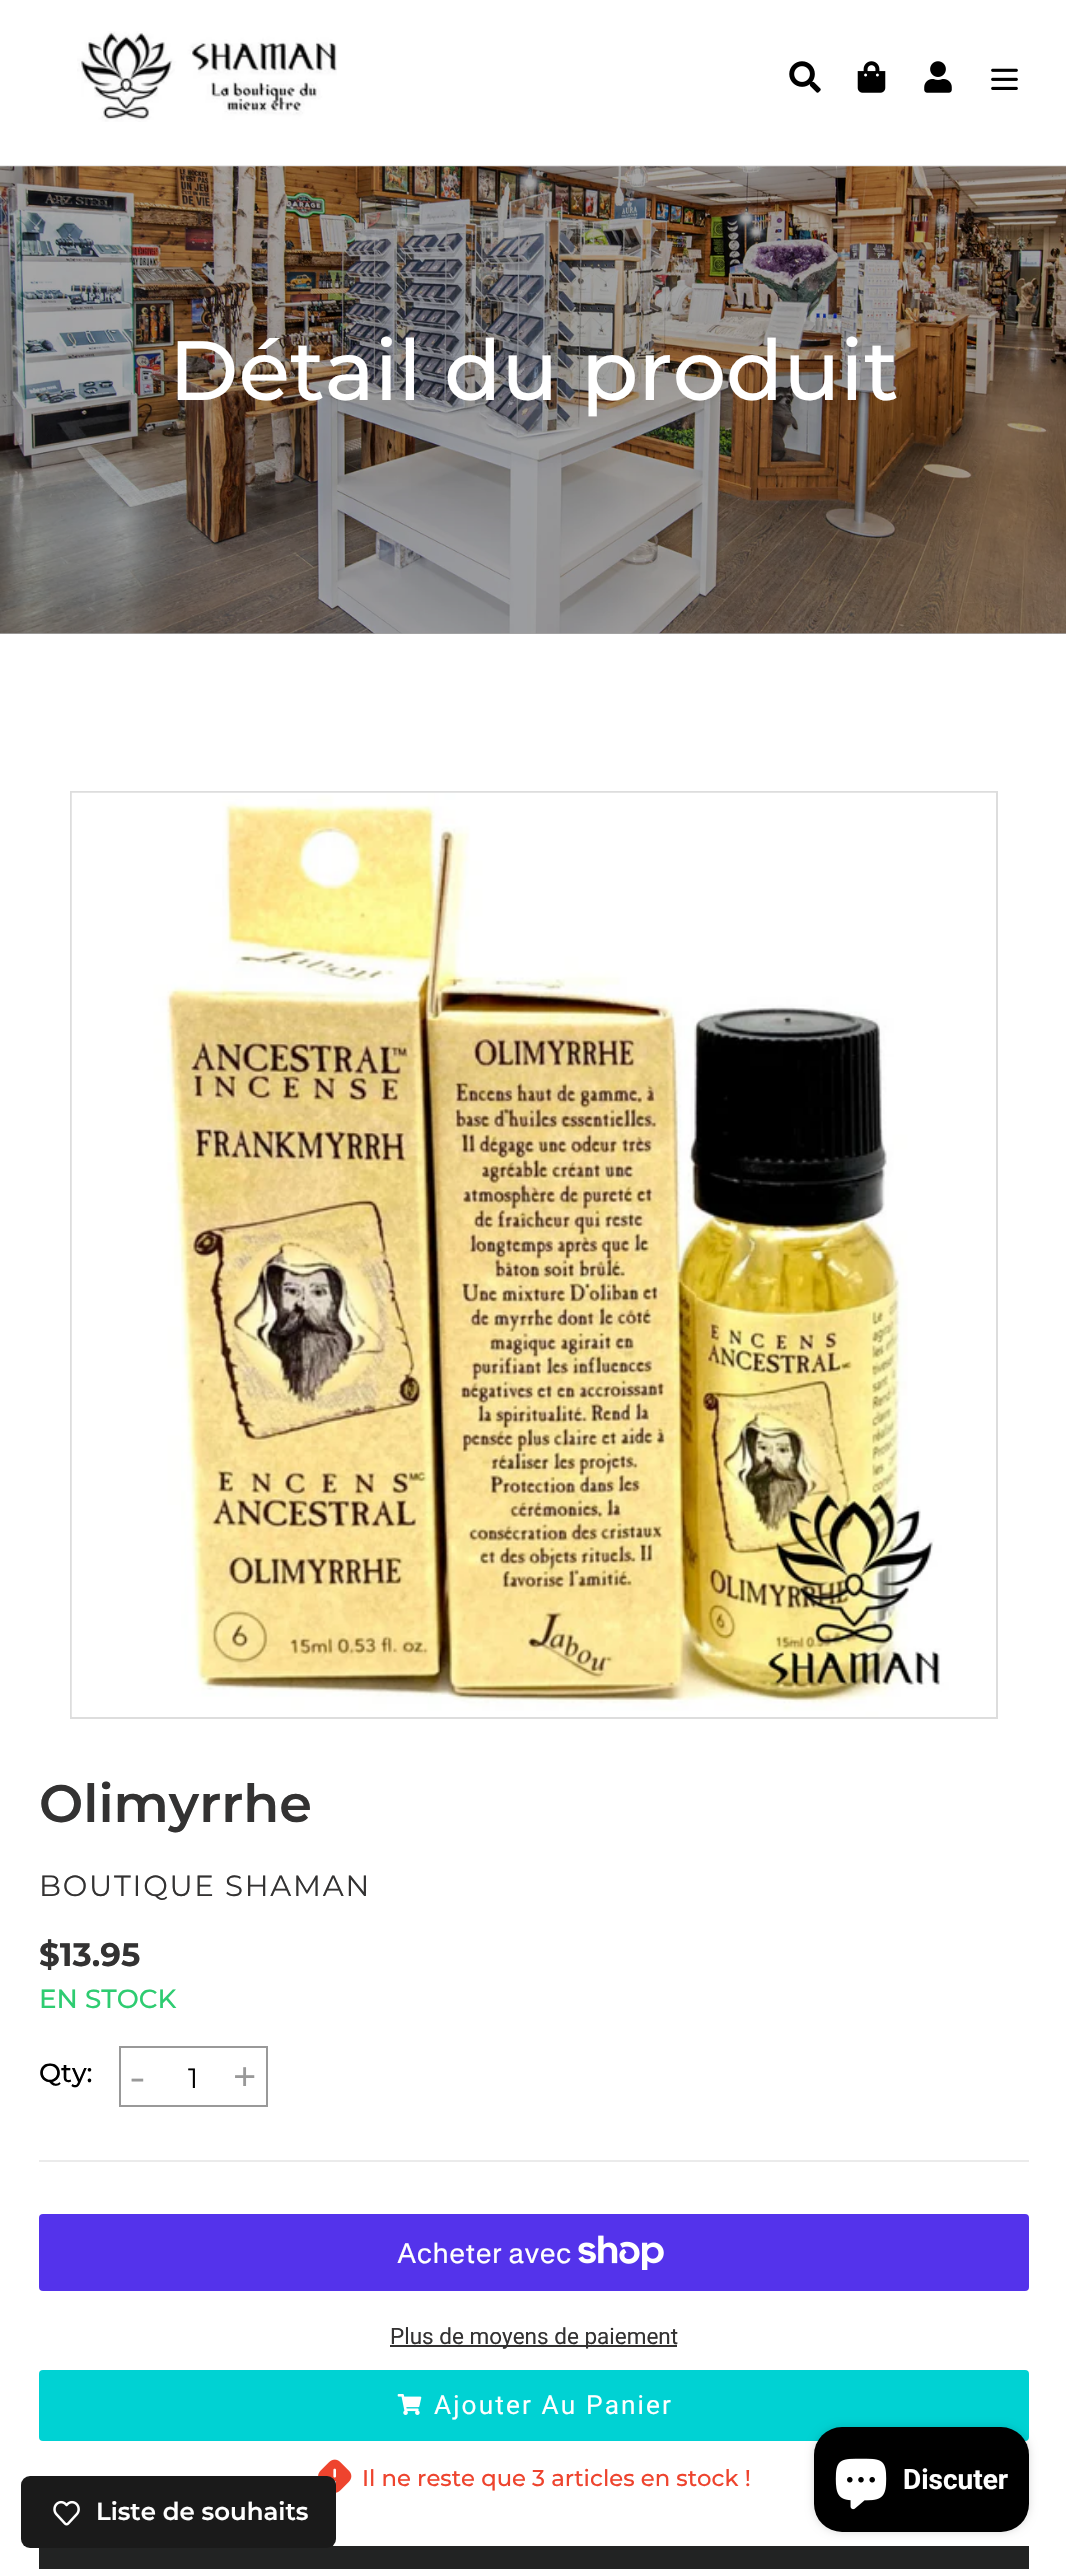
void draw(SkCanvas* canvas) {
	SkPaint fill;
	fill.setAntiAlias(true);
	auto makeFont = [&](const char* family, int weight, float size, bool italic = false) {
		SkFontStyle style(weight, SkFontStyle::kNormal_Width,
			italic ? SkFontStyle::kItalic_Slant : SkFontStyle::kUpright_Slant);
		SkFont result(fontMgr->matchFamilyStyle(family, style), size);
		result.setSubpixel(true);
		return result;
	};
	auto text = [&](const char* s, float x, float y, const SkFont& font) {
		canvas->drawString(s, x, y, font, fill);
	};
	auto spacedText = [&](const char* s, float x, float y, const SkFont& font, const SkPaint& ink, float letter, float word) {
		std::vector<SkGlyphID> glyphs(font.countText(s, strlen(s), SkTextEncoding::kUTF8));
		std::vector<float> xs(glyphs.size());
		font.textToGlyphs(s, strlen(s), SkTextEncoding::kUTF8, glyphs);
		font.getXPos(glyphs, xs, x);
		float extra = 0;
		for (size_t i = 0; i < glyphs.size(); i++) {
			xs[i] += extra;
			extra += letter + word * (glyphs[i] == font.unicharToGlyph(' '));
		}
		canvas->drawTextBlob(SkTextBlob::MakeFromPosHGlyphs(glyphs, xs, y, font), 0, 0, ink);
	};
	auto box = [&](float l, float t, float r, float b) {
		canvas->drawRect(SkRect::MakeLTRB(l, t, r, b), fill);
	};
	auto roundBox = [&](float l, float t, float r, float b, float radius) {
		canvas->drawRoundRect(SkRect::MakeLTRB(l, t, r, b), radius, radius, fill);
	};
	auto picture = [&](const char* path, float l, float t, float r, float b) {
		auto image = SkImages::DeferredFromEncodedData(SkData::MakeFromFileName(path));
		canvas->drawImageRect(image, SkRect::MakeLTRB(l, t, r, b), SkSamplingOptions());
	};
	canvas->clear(0xFFFFFFFF);
	fill.setColor(0xFFA6A6A6);
	box(0, 633, 1066, 634);
	fill.setColor(0xFFEBEBEB);
	box(0, 165, 1066, 167);
	picture("image0.png", 77, 31, 337, 122);
	picture("image1.png", 789, 61, 821, 93);
	picture("image2.png", 857, 61, 886, 93);
	picture("image3.png", 924, 61, 952, 93);
	picture("image4.png", 991, 68, 1018, 90);
	picture("image5.png", 0, 166, 1066, 634);
	fill.setStyle(SkPaint::kStroke_Style);
	fill.setStrokeWidth(2);
	fill.setColor(0xFFDDDDDD);
	canvas->drawRect(SkRect::MakeLTRB(71, 792, 997, 1718), fill);
	picture("image6.png", 71, 792, 996, 1717);
	fill.setColor(0xFF999999);
	canvas->drawRect(SkRect::MakeLTRB(120, 2047, 267, 2106), fill);
	fill.setStyle(SkPaint::kFill_Style);
	fill.setColor(0xFFEBEBEB);
	box(39, 2160, 1029, 2162);
	fill.setColor(0xFF5433EB);
	roundBox(39, 2214, 1029, 2291, 4);
	picture("image7.png", 578, 2235, 664, 2270);
	fill.setColor(0xFF333232);
	box(390, 2345, 677, 2347);
	fill.setColor(0xFF00D2D3);
	roundBox(39, 2370, 1029, 2441, 4);
	picture("image8.png", 397, 2394, 422, 2415);
	picture("image9.png", 318, 2459, 352, 2493);
	fill.setColor(0xFF222323);
	box(39, 2546, 1029, 2569);
	fill.setColor(0x26000000);
	fill.setMaskFilter(SkMaskFilter::MakeBlur(kNormal_SkBlurStyle, 4.5f));
	canvas->drawRoundRect(SkRect::MakeLTRB(814, 2427, 1029, 2532), 28, 28, fill);
	fill.setMaskFilter(nullptr);
	fill.setColor(0xFF000000);
	roundBox(814, 2427, 1029, 2532, 28);
	picture("image10.png", 835, 2458, 887, 2510);
	fill.setColor(0xFF1A1A1A);
	roundBox(21, 2476, 336, 2548, 9);
	picture("image11.png", 53, 2500, 80, 2526);
	auto font1 = makeFont("Montserrat", 500, 84);
	fill.setColor(0xFFFFFFFF);
	text("Détail du produit", 169, 400, font1);
	auto font2 = makeFont("Montserrat", 600, 52.5f);
	fill.setColor(0xFF333232);
	text("Olimyrrhe", 39, 1822, font2);
	auto font3 = makeFont("Montserrat", 400, 29.25f);
	spacedText("BOUTIQUE SHAMAN", 39, 1896, font3, fill, 1.75f, 0);
	auto font4 = makeFont("Montserrat", 700, 32.5f);
	text("$13.95", 39, 1966, font4);
	auto font5 = makeFont("Montserrat", 500, 26.25f);
	fill.setColor(0xFF2ECC71);
	text("EN STOCK", 39, 2008, font5);
	fill.setColor(0xFF000000);
	text("Qty:", 39, 2082, font5);
	auto font6 = makeFont("Montserrat", 400, 44);
	fill.setColor(0xFF999999);
	text("-", 129, 2092, font6);
	auto font7 = makeFont("Montserrat", 400, 28);
	fill.setColor(0xFF000000);
	text("1", 188, 2088, font7);
	fill.setColor(0xFF999999);
	text("+", 232, 2092, font6);
	auto font8 = makeFont("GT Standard", 400, 28);
	fill.setColor(0xFFFFFFFF);
	text("Acheter avec", 397, 2263, font8);
	auto font9 = makeFont("Roboto", 400, 22.5f);
	fill.setColor(0xFF333232);
	text("Plus de moyens de paiement", 390, 2344, font9);
	auto font10 = makeFont("Roboto", 400, 26.25f);
	fill.setColor(0xFFFFFFFF);
	spacedText("Ajouter Au Panier", 434, 2414, font10, fill, 2.1f, 0);
	auto font11 = makeFont("Montserrat", 500, 22.75f);
	fill.setColor(0xFFEE442E);
	text("Il ne reste que 3 articles en stock !", 362, 2486, font11);
	auto font12 = makeFont("Roboto", 700, 28);
	fill.setColor(0xFFFFFFFF);
	text("Discuter", 903, 2489, font12);
	auto font13 = makeFont("Montserrat", 600, 24.5f);
	text("Liste de souhaits", 96, 2520, font13);
}
